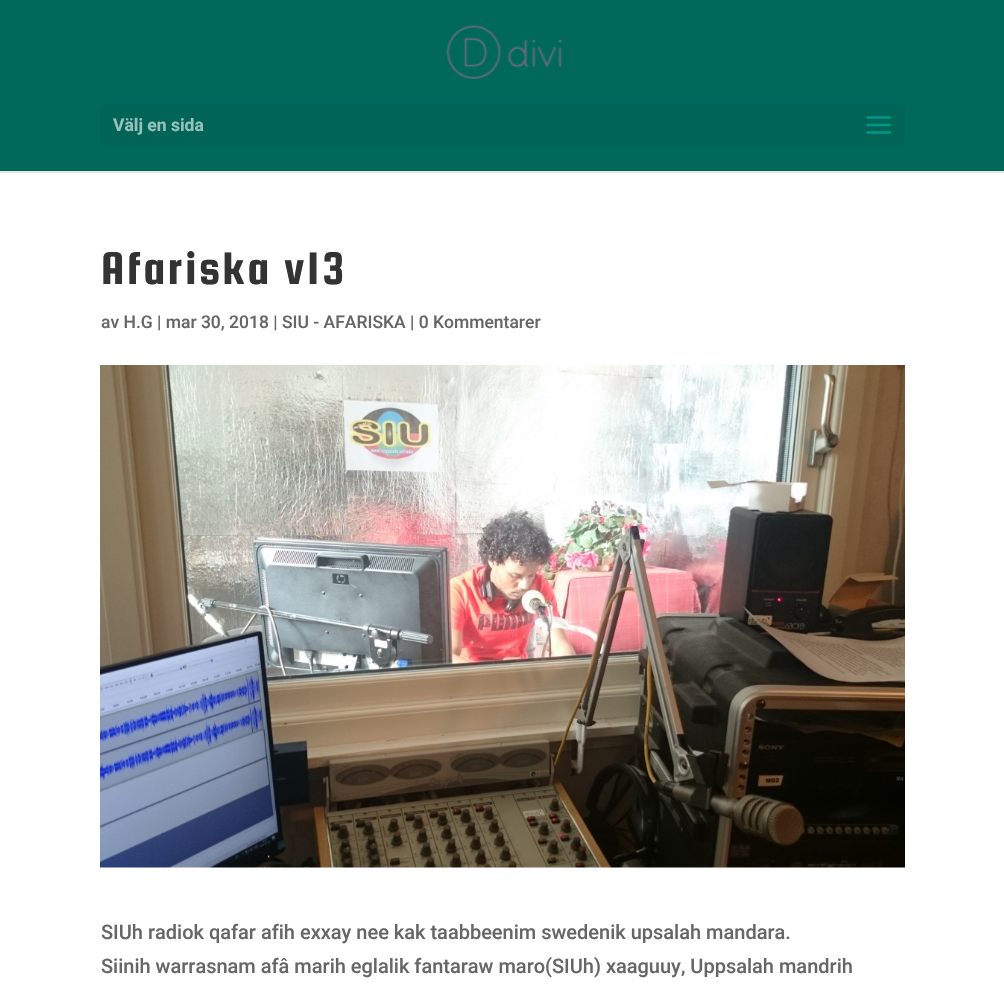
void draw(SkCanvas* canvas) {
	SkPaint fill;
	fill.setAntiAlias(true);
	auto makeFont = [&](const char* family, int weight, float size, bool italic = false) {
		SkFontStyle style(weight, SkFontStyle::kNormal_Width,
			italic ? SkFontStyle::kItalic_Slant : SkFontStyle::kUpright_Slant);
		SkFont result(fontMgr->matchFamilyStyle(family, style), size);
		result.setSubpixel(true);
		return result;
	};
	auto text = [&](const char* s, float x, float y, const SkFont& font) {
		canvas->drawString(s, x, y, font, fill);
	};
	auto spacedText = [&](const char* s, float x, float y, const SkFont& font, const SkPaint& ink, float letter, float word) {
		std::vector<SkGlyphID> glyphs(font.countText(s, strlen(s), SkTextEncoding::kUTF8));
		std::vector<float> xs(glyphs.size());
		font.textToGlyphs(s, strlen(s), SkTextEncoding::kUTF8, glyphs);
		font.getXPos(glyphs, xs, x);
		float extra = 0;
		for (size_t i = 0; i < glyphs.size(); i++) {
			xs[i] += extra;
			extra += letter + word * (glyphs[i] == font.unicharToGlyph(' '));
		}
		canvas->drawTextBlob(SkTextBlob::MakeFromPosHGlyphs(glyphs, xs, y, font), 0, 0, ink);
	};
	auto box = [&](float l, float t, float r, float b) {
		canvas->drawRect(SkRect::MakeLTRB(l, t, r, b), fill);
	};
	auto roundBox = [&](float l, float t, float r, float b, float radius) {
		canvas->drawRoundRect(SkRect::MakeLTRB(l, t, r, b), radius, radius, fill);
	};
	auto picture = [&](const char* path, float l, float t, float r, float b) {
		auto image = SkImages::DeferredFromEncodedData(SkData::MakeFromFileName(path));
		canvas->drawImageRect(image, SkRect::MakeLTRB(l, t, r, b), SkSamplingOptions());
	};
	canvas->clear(0xFFFFFFFF);
	fill.setColor(0xFFE6E6E6);
	box(0, 171, 1004, 173);
	fill.setColor(0xFF00695C);
	box(0, 0, 1004, 171);
	picture("image0.png", 446, 25, 563, 79);
	fill.setColor(0xFF006457);
	roundBox(100, 104, 905, 146, 6);
	picture("image1.png", 866, 116, 892, 134);
	picture("image2.png", 100, 365, 905, 868);
	auto font1 = makeFont("Roboto", 700, 17.5f);
	fill.setColor(0xFF99C1BC);
	text("Välj en sida", 113, 131, font1);
	auto font2 = makeFont("Squada One", 400, 48.75f);
	fill.setColor(0xFF333333);
	spacedText("Afariska v13", 101, 284, font2, fill, 2.5f, 0);
	auto font3 = makeFont("Roboto", 500, 17.5f);
	fill.setColor(0xFF666666);
	text("av H.G | mar 30, 2018 | SIU - AFARISKA | 0 Kommentarer", 101, 328, font3);
	auto font4 = makeFont("Roboto", 500, 20);
	text("SIUh radiok qafar afih exxay nee kak taabbeenim swedenik upsalah mandara.", 101, 939, font4);
	text("Siinih warrasnam afâ marih eglalik fantaraw maro(SIUh) xaaguuy, Uppsalah mandrih", 101, 973, font4);
}
